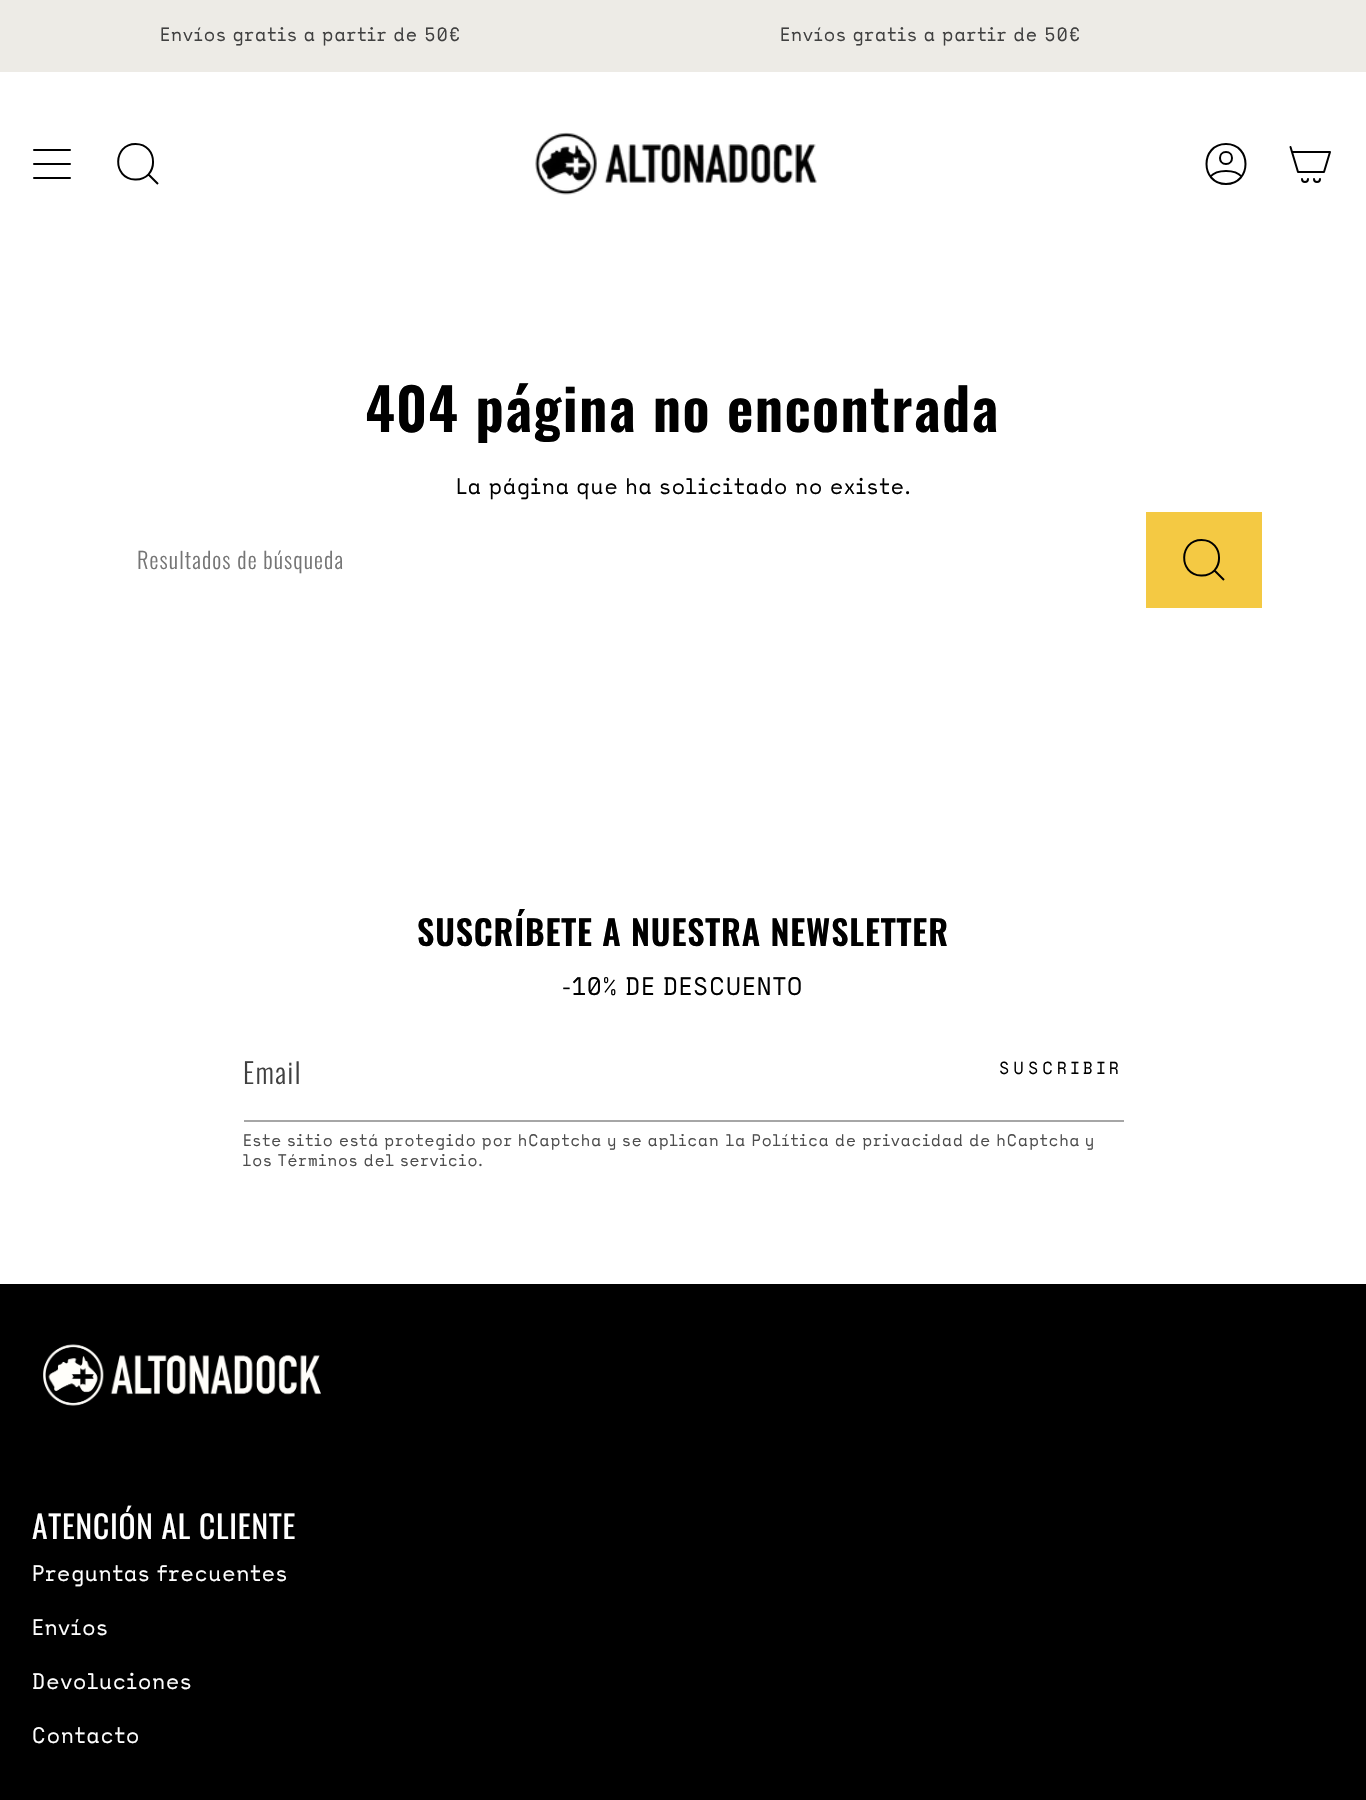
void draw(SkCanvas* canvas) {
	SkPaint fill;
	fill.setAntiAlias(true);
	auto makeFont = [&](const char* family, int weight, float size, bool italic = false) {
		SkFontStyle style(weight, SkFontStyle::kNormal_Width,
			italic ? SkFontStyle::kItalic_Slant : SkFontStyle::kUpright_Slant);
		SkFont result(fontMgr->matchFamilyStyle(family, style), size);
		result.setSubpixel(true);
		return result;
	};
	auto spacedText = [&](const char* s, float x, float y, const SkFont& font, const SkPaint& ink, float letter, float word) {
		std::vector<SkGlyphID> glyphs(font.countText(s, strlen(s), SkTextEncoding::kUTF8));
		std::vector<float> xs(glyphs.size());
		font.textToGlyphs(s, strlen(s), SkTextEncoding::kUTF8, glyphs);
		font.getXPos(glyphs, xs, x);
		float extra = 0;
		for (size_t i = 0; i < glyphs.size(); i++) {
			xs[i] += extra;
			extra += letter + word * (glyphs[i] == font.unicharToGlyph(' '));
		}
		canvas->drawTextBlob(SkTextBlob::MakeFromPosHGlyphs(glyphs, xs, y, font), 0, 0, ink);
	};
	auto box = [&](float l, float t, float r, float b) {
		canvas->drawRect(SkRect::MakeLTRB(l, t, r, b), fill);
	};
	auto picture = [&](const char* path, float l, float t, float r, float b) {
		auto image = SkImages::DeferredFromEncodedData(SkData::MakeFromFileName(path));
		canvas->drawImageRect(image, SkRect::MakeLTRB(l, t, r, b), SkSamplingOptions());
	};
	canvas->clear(0xFFFFFFFF);
	fill.setColor(0xFFEDEBE6);
	box(0, 0, 1366, 72);
	fill.setStyle(SkPaint::kStroke_Style);
	fill.setStrokeWidth(2);
	fill.setStrokeCap(SkPaint::kRound_Cap);
	fill.setStrokeJoin(SkPaint::kRound_Join);
	fill.setColor(0xFF000000);
	canvas->drawPath(SkPathBuilder().moveTo(34, 150).lineTo(70, 150).moveTo(34, 164).lineTo(70, 164).moveTo(34, 178).lineTo(70, 178).detach(), fill);
	fill.setStrokeCap(SkPaint::kButt_Cap);
	fill.setStrokeJoin(SkPaint::kMiter_Join);
	canvas->drawPath(SkPathBuilder().moveTo(135.5f, 144).cubicTo(159, 144, 159, 180.5f, 135, 179.5f).cubicTo(112, 178.5f, 113, 144, 135.5f, 144).close().moveTo(148, 174).lineTo(158, 184).detach(), fill);
	picture("image0.png", 535, 132, 817, 195);
	fill.setStrokeCap(SkPaint::kRound_Cap);
	fill.setStrokeJoin(SkPaint::kRound_Join);
	canvas->drawPath(SkPathBuilder().moveTo(1226, 144).cubicTo(1200, 144, 1200, 184, 1226, 184).cubicTo(1252, 184, 1252, 144, 1226, 144).close().moveTo(1210.5f, 176.5f).cubicTo(1216.5f, 169, 1235.5f, 169, 1241.5f, 176.5f).moveTo(1226, 164).cubicTo(1234, 164, 1234, 152, 1226, 152).cubicTo(1218, 152, 1218, 164, 1226, 164).close().detach(), fill);
	canvas->drawPath(SkPathBuilder().moveTo(1292, 152).lineTo(1330, 152).lineTo(1324, 172).lineTo(1298, 172).close().moveTo(1292, 152).lineTo(1290.5f, 147).moveTo(1308, 179).cubicTo(1308, 183, 1302, 183, 1302, 179).moveTo(1320, 179).cubicTo(1320, 183, 1314, 183, 1314, 179).detach(), fill);
	fill.setStyle(SkPaint::kFill_Style);
	fill.setColor(0xFFF4C943);
	box(1146, 512, 1262, 608);
	fill.setStyle(SkPaint::kStroke_Style);
	fill.setStrokeCap(SkPaint::kButt_Cap);
	fill.setStrokeJoin(SkPaint::kMiter_Join);
	fill.setColor(0xFF000000);
	canvas->drawPath(SkPathBuilder().moveTo(1201.5f, 540).cubicTo(1225, 540, 1225, 576.5f, 1201, 575.5f).cubicTo(1178, 574.5f, 1179, 540, 1201.5f, 540).close().moveTo(1214, 570).lineTo(1224, 580).detach(), fill);
	fill.setStyle(SkPaint::kFill_Style);
	fill.setColor(0xFFA6A6A6);
	box(244, 1120, 1124, 1122);
	fill.setColor(0xFF000000);
	box(0, 1284, 1366, 1800);
	picture("image1.png", 43, 1344, 321, 1406);
	auto font1 = makeFont("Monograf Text", 400, 19.25f);
	fill.setColor(0xFF404040);
	spacedText("Envíos gratis a partir de 50€", 160, 41, font1, fill, 1.12f, 0);
	spacedText("Envíos gratis a partir de 50€", 780, 41, font1, fill, 1.12f, 0);
	auto font2 = makeFont("Oswald", 600, 57.6f);
	fill.setColor(0xFF000000);
	spacedText("404 página no encontrada", 365, 432, font2, fill, 1.4f, 0);
	auto font3 = makeFont("Monograf Text", 400, 22.4f);
	spacedText("La página que ha solicitado no existe.", 456, 494, font3, fill, 1.12f, 0);
	auto font4 = makeFont("Oswald", 300, 22.4f);
	fill.setColor(0xFF757575);
	spacedText("Resultados de búsqueda", 137, 569, font4, fill, 1.12f, 0);
	auto font5 = makeFont("Oswald", 600, 34.25f);
	fill.setColor(0xFF000000);
	spacedText("SUSCRÍBETE A NUESTRA NEWSLETTER", 417, 946, font5, fill, 0.85f, 0);
	auto font6 = makeFont("Monograf Text", 400, 25.5f);
	spacedText("-10% DE DESCUENTO", 562, 995, font6, fill, 1.12f, 0);
	auto font7 = makeFont("Oswald", 300, 28);
	fill.setColor(0xFF404040);
	spacedText("Email", 243, 1084, font7, fill, 1.5f, 0);
	auto font8 = makeFont("Monograf Text", 400, 17.5f);
	fill.setColor(0xFF000000);
	spacedText("SUSCRIBIR", 999, 1074, font8, fill, 4, 0);
	auto font9 = makeFont("Monograf Text", 400, 16.8f);
	fill.setColor(0xFF4D4D4D);
	spacedText("Este sitio está protegido por hCaptcha y se aplican", 243, 1146, font9, fill, 1.12f, -0.25f);
	spacedText("la Política de privacidad de hCaptcha", 726, 1146, font9, fill, 1.12f, 0);
	spacedText("y", 1085, 1146, font9, fill, 1.12f, 0);
	spacedText("los Términos del servicio.", 243, 1166, font9, fill, 1.12f, 0);
	auto font10 = makeFont("Oswald", 400, 31.5f);
	fill.setColor(0xFFFFFFFF);
	spacedText("ATENCIÓN AL CLIENTE", 32, 1539, font10, fill, 0.75f, 0);
	spacedText("Preguntas frecuentes", 32, 1581, font3, fill, 1.12f, 0);
	spacedText("Envíos", 32, 1635, font3, fill, 1.12f, 0);
	spacedText("Devoluciones", 32, 1689, font3, fill, 1.12f, 0);
	spacedText("Contacto", 32, 1743, font3, fill, 1.12f, 0);
}
